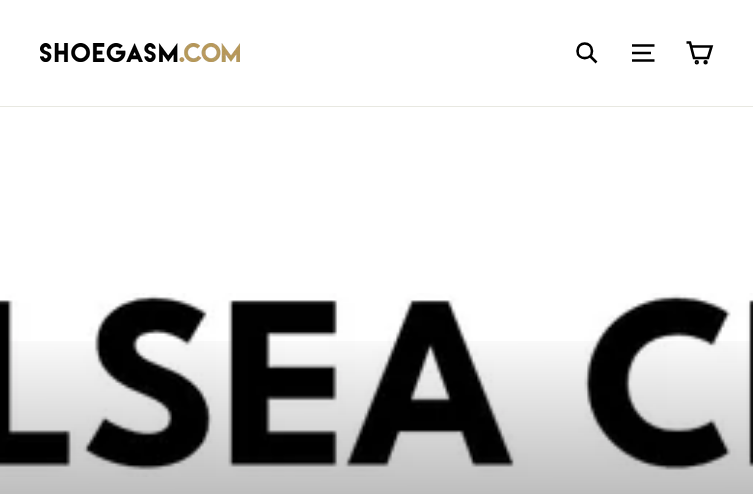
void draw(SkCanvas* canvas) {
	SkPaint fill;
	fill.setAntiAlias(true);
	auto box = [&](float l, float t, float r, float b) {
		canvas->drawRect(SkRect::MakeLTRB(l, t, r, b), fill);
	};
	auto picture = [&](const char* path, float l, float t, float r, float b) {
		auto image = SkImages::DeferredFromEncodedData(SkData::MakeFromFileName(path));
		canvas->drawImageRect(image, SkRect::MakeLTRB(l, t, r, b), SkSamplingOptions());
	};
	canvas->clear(0xFFFFFFFF);
	fill.setColor(0xFFE8E8E1);
	box(0, 106, 753, 107);
	picture("image0.png", 40, 43, 240, 62);
	fill.setStyle(SkPaint::kStroke_Style);
	fill.setStrokeWidth(2.6f);
	fill.setColor(0xFF000000);
	canvas->drawPath(SkPathBuilder().moveTo(592, 51).cubicTo(592, 60.5f, 577.5f, 60.5f, 577.5f, 51).cubicTo(577.5f, 41, 592, 41, 592, 51).close().moveTo(596.5f, 62.5f).lineTo(590, 56).detach(), fill);
	canvas->drawPath(SkPathBuilder().moveTo(632, 45.5f).lineTo(654.5f, 45.5f).moveTo(632, 53).lineTo(651, 53).moveTo(632, 60.5f).lineTo(654.5f, 60.5f).detach(), fill);
	canvas->drawPath(SkPathBuilder().moveTo(691, 46.5f).lineTo(711.5f, 46.5f).lineTo(708, 58).lineTo(694, 58).lineTo(690, 42.5f).lineTo(686.5f, 42.5f).detach(), fill);
	canvas->drawCircle(696.8f, 62.2f, 0.9f, fill);
	fill.setStyle(SkPaint::kFill_Style);
	canvas->drawCircle(705.6f, 62.2f, 0.9f, fill);
	fill.setStyle(SkPaint::kStroke_Style);
	canvas->drawCircle(705.6f, 62.2f, 0.9f, fill);
	picture("image1.png", 0, 293, 753, 477);
	fill.setStyle(SkPaint::kFill_Style);
	{
		const SkColor colors[] = {0x00000000, 0x00000000, 0x80000000};
		const float stops[] = {0, 0.4f, 1};
		const SkPoint ends[] = {{376, 107}, {377, 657}};
		fill.setShader(SkGradientShader::MakeLinear(ends, colors, stops, 3, SkTileMode::kClamp));
		fill.setAlpha(255);
	}
	box(0, 341, 753, 494);
}
